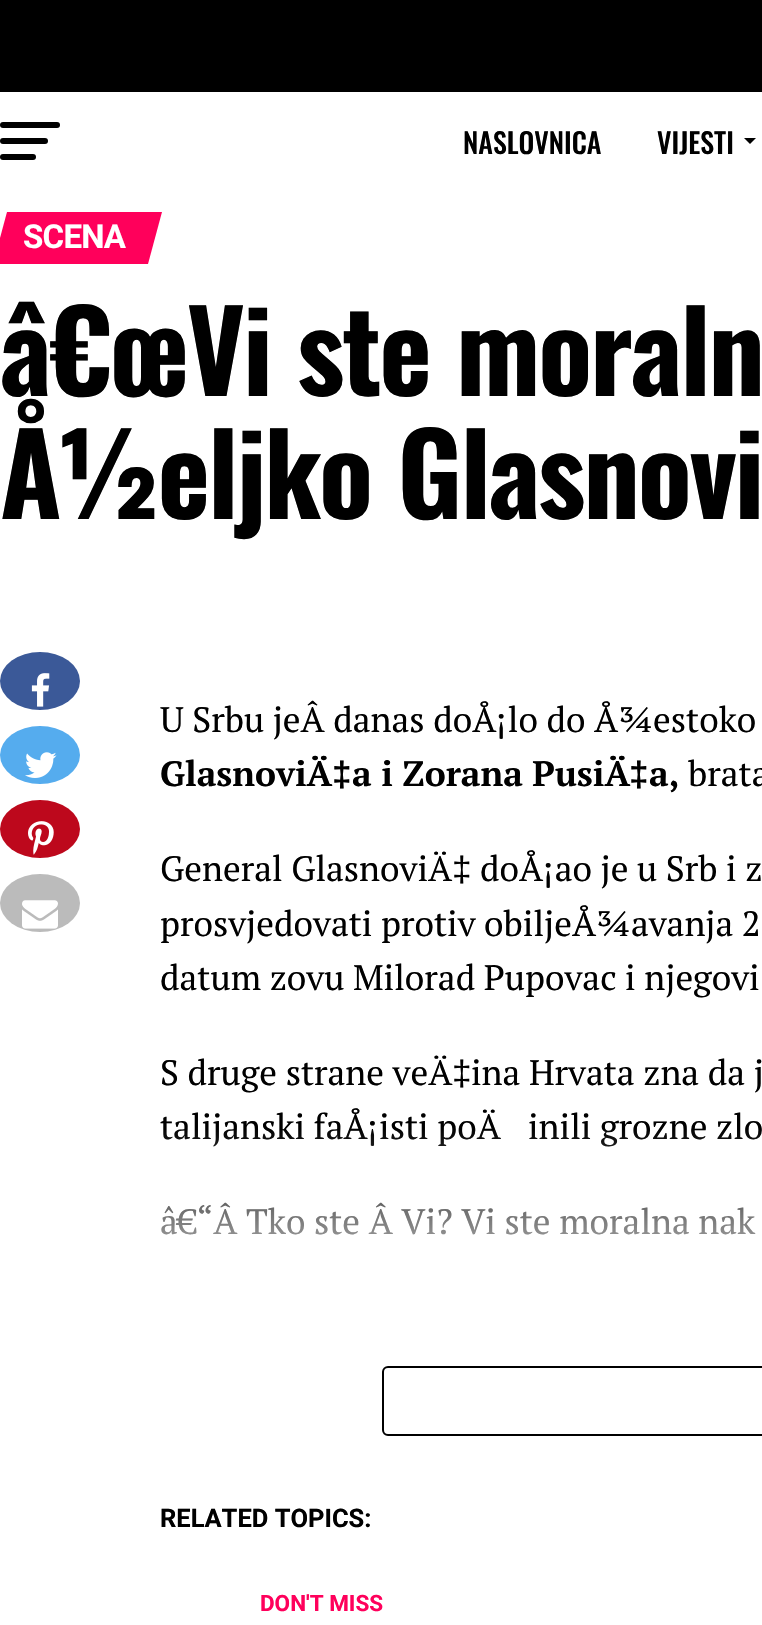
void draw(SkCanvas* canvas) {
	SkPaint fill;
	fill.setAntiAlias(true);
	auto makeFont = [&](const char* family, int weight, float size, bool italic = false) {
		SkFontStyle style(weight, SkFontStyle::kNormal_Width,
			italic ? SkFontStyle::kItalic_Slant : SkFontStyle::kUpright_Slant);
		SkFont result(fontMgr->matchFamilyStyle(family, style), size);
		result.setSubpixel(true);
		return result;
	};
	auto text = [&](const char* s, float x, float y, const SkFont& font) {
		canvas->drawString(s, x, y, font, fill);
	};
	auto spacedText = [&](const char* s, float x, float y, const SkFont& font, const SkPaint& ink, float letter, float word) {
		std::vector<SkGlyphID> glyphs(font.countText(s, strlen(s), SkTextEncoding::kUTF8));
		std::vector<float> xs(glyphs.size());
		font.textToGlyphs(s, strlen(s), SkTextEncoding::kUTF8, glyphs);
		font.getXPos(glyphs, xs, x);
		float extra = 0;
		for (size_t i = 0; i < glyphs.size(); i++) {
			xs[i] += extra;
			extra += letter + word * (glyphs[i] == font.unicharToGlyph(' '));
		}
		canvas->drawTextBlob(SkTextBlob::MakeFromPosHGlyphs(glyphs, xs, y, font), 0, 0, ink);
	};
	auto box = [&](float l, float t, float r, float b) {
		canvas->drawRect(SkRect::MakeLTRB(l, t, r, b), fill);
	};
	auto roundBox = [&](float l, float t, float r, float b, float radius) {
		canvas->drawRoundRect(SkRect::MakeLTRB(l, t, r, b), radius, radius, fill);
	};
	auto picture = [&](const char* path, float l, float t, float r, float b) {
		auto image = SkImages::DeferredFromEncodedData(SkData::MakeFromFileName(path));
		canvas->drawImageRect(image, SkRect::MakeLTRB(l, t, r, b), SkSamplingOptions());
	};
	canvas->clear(0xFFFFFFFF);
	fill.setColor(0xFF000000);
	box(0, 0, 762, 92);
	roundBox(0, 122, 60, 128, 3);
	roundBox(0, 138, 48, 144, 3);
	roundBox(0, 154, 36, 160, 3);
	canvas->drawPath(SkPathBuilder().moveTo(744, 138).lineTo(756, 138).lineTo(750, 144).close().detach(), fill);
	fill.setColor(0xFFFF005B);
	canvas->drawPath(SkPathBuilder().moveTo(7, 212).lineTo(162, 212).lineTo(148, 264).lineTo(-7, 264).close().detach(), fill);
	fill.setColor(0xFF3B5998);
	canvas->drawOval(SkRect::MakeLTRB(0, 652, 80, 710), fill);
	picture("image0.png", 31, 673, 50, 707);
	fill.setColor(0xFF55ACEE);
	canvas->drawOval(SkRect::MakeLTRB(0, 726, 80, 784), fill);
	picture("image1.png", 25, 752, 57, 778);
	fill.setColor(0xFFBD081C);
	canvas->drawOval(SkRect::MakeLTRB(0, 800, 80, 858), fill);
	picture("image2.png", 28, 821, 54, 855);
	fill.setColor(0xFFBBBBBB);
	canvas->drawOval(SkRect::MakeLTRB(0, 874, 80, 932), fill);
	picture("image3.png", 22, 900, 58, 929);
	fill.setStyle(SkPaint::kStroke_Style);
	fill.setStrokeWidth(2);
	fill.setColor(0xFF000000);
	canvas->drawRoundRect(SkRect::MakeLTRB(383, 1367, 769, 1435), 5, 5, fill);
	auto font1 = makeFont("Oswald", 500, 28);
	fill.setStyle(SkPaint::kFill_Style);
	text("NASLOVNICA", 463, 154, font1);
	text("VIJESTI", 657, 154, font1);
	auto font2 = makeFont("Roboto", 700, 33);
	fill.setColor(0xFFFFFFFF);
	spacedText("SCENA", 23, 248, font2, fill, -0.75f, 0);
	auto font3 = makeFont("Oswald", 700, 112);
	fill.setColor(0xFF000000);
	spacedText("â€œVi ste moraln", 0, 396, font3, fill, -2.25f, 0);
	spacedText("Å½eljko Glasnovi", 0, 519, font3, fill, -2.25f, 0);
	auto font4 = makeFont("PT Serif", 400, 35.25f);
	text("U Srbu jeÂ danas doÅ¡lo do Å¾estoko", 160, 732, font4);
	auto font5 = makeFont("PT Serif", 700, 35.25f);
	text("GlasnoviÄ", 160, 786, font5);
	auto font6 = makeFont("Liberation Sans", 700, 35.25f);
	text("‡", 332, 786, font6);
	text("a i Zorana PusiÄ", 352, 786, font5);
	text("‡", 629, 786, font6);
	text("a,", 649, 786, font5);
	text("brata", 688, 786, font4);
	text("General GlasnoviÄ", 160, 881, font4);
	auto font7 = makeFont("Liberation Sans", 400, 35.25f);
	text("‡", 452, 881, font7);
	text("doÅ¡ao je u Srb i z", 480, 881, font4);
	text("prosvjedovati protiv obiljeÅ¾avanja 2", 160, 936, font4);
	text("datum zovu Milorad Pupovac i njegovi", 160, 990, font4);
	text("S druge strane veÄ", 160, 1085, font4);
	text("‡", 452, 1085, font7);
	text("ina Hrvata zna da j", 471, 1085, font4);
	text("talijanski faÅ¡isti poÄ", 160, 1139, font4);
	text("inili grozne zlo", 528, 1139, font4);
	text("â€“Â Tko ste Â Vi? Vi ste moralna nak", 160, 1234, font4);
	auto font8 = makeFont("Roboto", 700, 25.5f);
	text("RELATED TOPICS:", 160, 1527, font8);
	auto font9 = makeFont("Roboto", 700, 22.5f);
	fill.setColor(0xFFFF005B);
	text("DON'T MISS", 260, 1611, font9);
	{
		const SkColor colors[] = {0x00FFFFFF, 0xE6FFFFFF, 0xFFFFFFFF};
		const float stops[] = {0, 0.5f, 1};
		const SkPoint ends[] = {{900, 1126}, {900, 1476}};
		fill.setShader(SkGradientShader::MakeLinear(ends, colors, stops, 3, SkTileMode::kClamp));
		fill.setAlpha(255);
	}
	box(161, 1130, 762, 1235);
}
